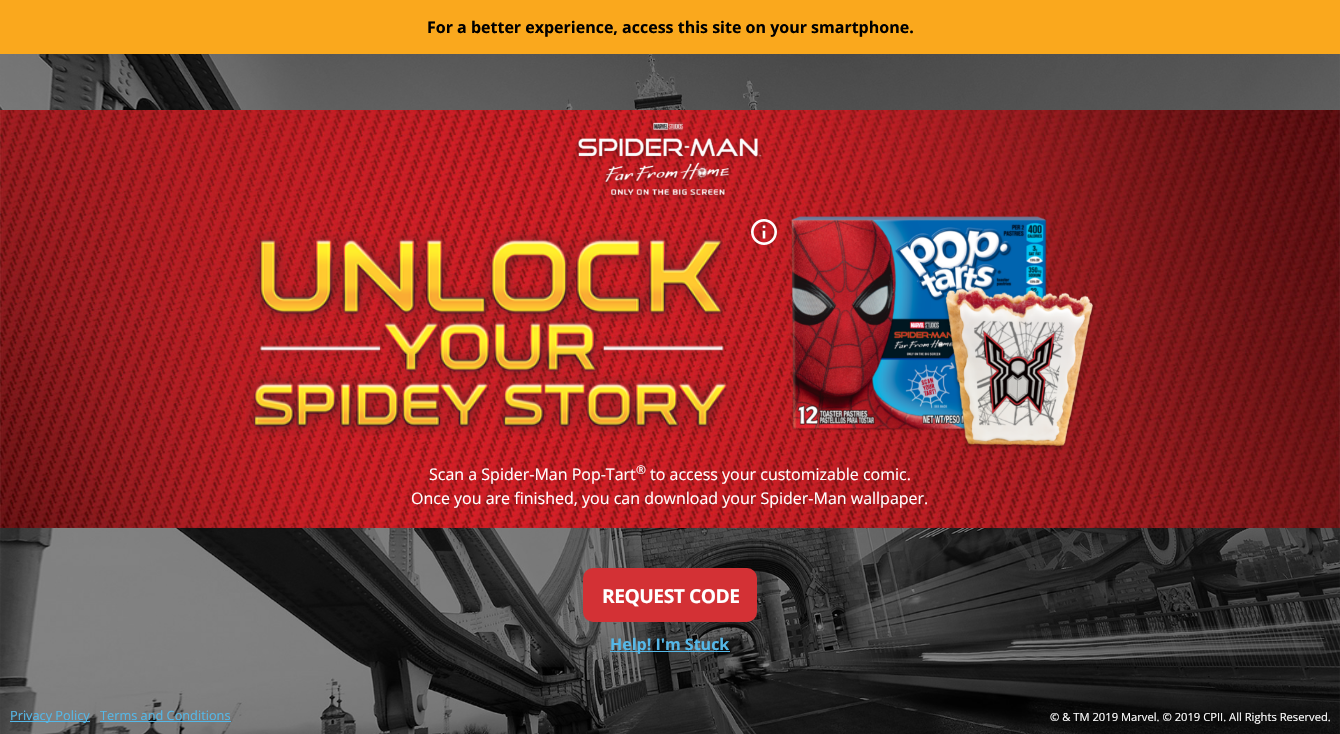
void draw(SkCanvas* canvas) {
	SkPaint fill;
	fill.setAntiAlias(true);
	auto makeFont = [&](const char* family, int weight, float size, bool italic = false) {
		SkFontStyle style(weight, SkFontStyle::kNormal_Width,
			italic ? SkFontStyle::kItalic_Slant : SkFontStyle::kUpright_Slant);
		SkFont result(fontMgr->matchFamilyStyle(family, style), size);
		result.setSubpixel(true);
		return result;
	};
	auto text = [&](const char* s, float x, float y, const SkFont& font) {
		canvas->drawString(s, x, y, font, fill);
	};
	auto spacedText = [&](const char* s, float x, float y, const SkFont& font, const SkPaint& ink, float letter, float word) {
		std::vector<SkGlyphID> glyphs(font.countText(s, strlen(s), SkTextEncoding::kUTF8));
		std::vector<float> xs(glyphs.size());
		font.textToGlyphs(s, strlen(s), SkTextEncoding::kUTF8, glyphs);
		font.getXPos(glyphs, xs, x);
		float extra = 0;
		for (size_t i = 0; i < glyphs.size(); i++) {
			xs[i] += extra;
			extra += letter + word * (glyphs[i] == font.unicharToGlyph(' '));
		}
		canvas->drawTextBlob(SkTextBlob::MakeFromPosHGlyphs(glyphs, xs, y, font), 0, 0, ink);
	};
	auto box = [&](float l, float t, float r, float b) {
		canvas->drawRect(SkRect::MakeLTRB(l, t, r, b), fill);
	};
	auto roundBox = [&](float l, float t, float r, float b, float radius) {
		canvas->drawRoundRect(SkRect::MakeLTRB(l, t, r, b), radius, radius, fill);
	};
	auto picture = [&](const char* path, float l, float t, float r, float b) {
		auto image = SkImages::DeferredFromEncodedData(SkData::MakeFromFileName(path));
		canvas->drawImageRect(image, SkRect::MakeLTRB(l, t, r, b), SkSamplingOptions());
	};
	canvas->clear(0xFFFFFFFF);
	fill.setColor(0xFFFAA81D);
	box(0, 0, 1340, 54);
	picture("image0.png", 0, 54, 1340, 734);
	picture("image1.png", 0, 110, 1340, 528);
	picture("image2.png", 576, 122, 762, 199);
	picture("image3.png", 246, 230, 733, 436);
	picture("image4.png", 751, 219, 777, 245);
	picture("image5.png", 791, 216, 1095, 450);
	fill.setColor(0xFFD33135);
	roundBox(583, 568, 757, 622, 10);
	fill.setColor(0xFF55B8E8);
	box(610, 651, 730, 652);
	box(10, 721, 90, 722);
	box(100, 721, 231, 722);
	auto font1 = makeFont("Open Sans", 700, 16);
	fill.setColor(0xFF000000);
	text("For a better experience, access this site on your smartphone.", 427, 33, font1);
	auto font2 = makeFont("Open Sans", 400, 16);
	fill.setColor(0xFFFFFFFF);
	text("Scan a Spider-Man Pop-Tart", 429, 480, font2);
	auto font3 = makeFont("Open Sans", 400, 12);
	text("®", 636, 474, font3);
	text("to access your customizable comic.", 650, 480, font2);
	text("Once you are finished, you can download your Spider-Man wallpaper.", 411, 504, font2);
	auto font4 = makeFont("Open Sans", 700, 19.25f);
	spacedText("REQUEST CODE", 602, 603, font4, fill, -0.5f, 0);
	fill.setColor(0xFF55B8E8);
	text("Help! I'm Stuck", 610, 650, font1);
	auto font5 = makeFont("Open Sans", 400, 12.75f);
	text("Privacy Policy", 10, 720, font5);
	text("Terms and Conditions", 100, 720, font5);
	auto font6 = makeFont("Open Sans", 400, 11.2f);
	fill.setColor(0xFFFFFFFF);
	text("© & TM 2019 Marvel. © 2019 CPII. All Rights Reserved.", 1050, 721, font6);
}
